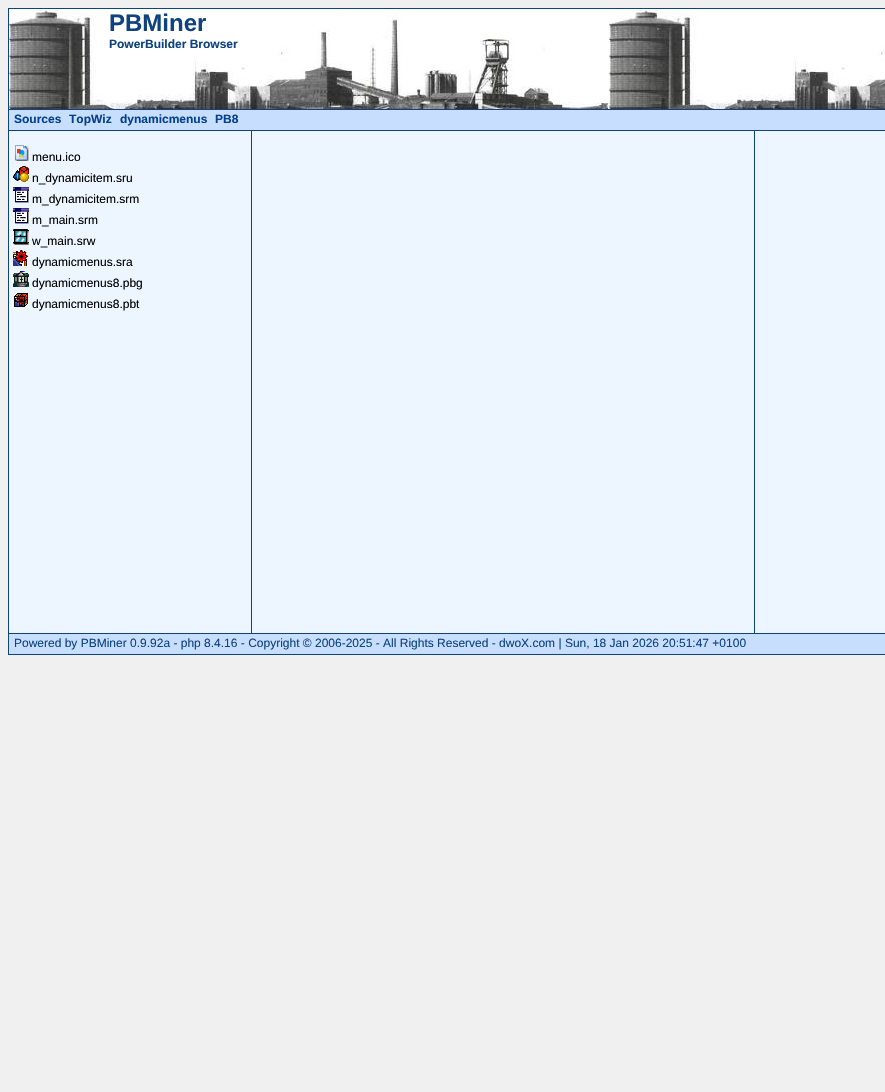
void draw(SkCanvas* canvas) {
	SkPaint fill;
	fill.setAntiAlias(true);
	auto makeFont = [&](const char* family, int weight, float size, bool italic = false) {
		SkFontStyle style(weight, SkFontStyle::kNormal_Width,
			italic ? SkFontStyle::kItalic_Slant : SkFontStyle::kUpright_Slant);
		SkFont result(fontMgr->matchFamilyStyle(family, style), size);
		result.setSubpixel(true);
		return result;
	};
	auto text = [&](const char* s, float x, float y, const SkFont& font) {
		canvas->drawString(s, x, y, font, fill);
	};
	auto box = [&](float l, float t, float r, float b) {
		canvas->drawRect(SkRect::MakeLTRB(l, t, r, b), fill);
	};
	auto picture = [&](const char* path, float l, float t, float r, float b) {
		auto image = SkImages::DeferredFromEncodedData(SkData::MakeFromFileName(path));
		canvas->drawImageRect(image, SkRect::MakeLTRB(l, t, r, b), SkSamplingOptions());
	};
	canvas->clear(0xFFF0F0F0);
	picture("image0.png", 9, 9, 885, 109);
	fill.setColor(0xFF0E4380);
	box(8, 8, 885, 9);
	box(8, 8, 9, 109);
	fill.setColor(0xFFC8DEFD);
	box(9, 110, 885, 130);
	fill.setColor(0xFF0E4380);
	box(8, 109, 885, 110);
	box(8, 109, 9, 130);
	fill.setColor(0xFFEDF5FF);
	box(9, 131, 251, 633);
	fill.setColor(0xFF0E4380);
	box(8, 130, 251, 131);
	box(8, 633, 251, 634);
	box(8, 130, 9, 634);
	picture("image1.png", 15, 145, 29, 161);
	picture("image2.png", 13, 166, 29, 182);
	picture("image3.png", 13, 187, 29, 203);
	picture("image3.png", 13, 208, 29, 224);
	picture("image4.png", 13, 229, 29, 245);
	picture("image5.png", 13, 250, 28, 266);
	picture("image6.png", 13, 271, 29, 287);
	picture("image7.png", 14, 293, 28, 307);
	fill.setColor(0xFFEDF5FF);
	canvas->drawRect(SkRect::MakeLTRB(251.5f, 130.5f, 754.5f, 633.5f), fill);
	fill.setStyle(SkPaint::kStroke_Style);
	fill.setStrokeWidth(1);
	fill.setColor(0xFF0E4380);
	canvas->drawRect(SkRect::MakeLTRB(251.5f, 130.5f, 754.5f, 633.5f), fill);
	fill.setStyle(SkPaint::kFill_Style);
	fill.setColor(0xFFEDF5FF);
	box(755, 131, 885, 633);
	fill.setColor(0xFF0E4380);
	box(755, 130, 885, 131);
	box(755, 633, 885, 634);
	fill.setColor(0xFFC8DEFD);
	box(9, 634, 885, 654);
	fill.setColor(0xFF0E4380);
	box(8, 654, 885, 655);
	box(8, 634, 9, 655);
	auto font1 = makeFont("Liberation Sans", 700, 24);
	text("PBMiner", 109, 31, font1);
	auto font2 = makeFont("Liberation Sans", 700, 12);
	text("PowerBuilder Browser", 109, 48, font2);
	fill.setColor(0xFF04408C);
	text("Sources", 14, 123, font2);
	text("TopWiz", 69, 123, font2);
	text("dynamicmenus", 120, 123, font2);
	text("PB8", 215, 123, font2);
	auto font3 = makeFont("Liberation Sans", 400, 12);
	fill.setColor(0xFF000000);
	text("menu.ico", 32, 161, font3);
	text("n_dynamicitem.sru", 32, 182, font3);
	text("m_dynamicitem.srm", 32, 203, font3);
	text("m_main.srm", 32, 224, font3);
	text("w_main.srw", 32, 245, font3);
	text("dynamicmenus.sra", 32, 266, font3);
	text("dynamicmenus8.pbg", 32, 287, font3);
	text("dynamicmenus8.pbt", 32, 308, font3);
	fill.setColor(0xFF0E4380);
	text("Powered by PBMiner 0.9.92a - php 8.4.16 - Copyright © 2006-2025 - All Rights Reserved - dwoX.com | Sun, 18 Jan 2026 20:51:47 +0100", 14, 647, font3);
}
